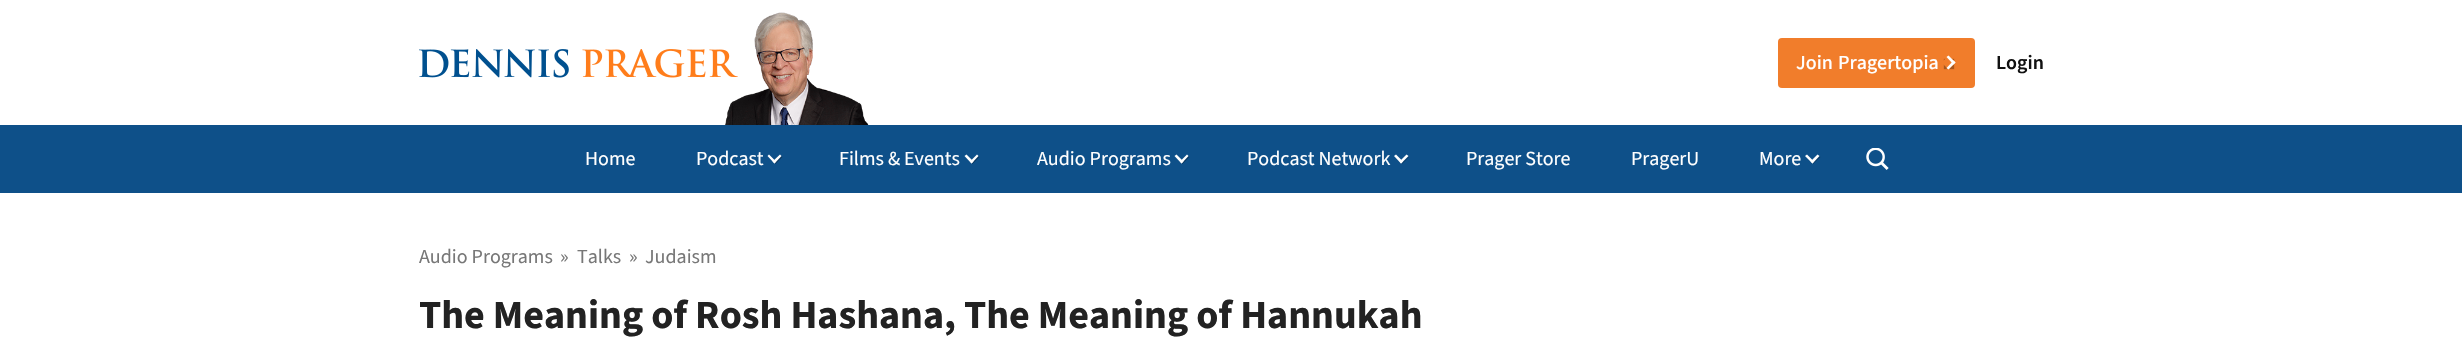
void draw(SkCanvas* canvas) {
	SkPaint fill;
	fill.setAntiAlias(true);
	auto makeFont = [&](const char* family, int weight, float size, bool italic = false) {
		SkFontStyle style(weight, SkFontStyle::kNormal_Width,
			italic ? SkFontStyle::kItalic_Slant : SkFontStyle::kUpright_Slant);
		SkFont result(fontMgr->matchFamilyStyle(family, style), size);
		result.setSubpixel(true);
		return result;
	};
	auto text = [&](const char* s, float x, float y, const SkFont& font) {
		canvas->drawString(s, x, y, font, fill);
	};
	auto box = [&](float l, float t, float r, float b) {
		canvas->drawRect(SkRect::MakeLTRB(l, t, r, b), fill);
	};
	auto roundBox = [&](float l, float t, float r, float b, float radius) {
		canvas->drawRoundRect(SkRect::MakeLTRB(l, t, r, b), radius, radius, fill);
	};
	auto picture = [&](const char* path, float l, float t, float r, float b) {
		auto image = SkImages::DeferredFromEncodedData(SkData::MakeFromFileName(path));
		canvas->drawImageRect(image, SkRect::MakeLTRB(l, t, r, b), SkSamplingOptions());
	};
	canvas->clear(0xFFFFFFFF);
	picture("image0.png", 419, 49, 738, 78);
	picture("image1.png", 725, 12, 869, 125);
	fill.setColor(0xFFF17D2B);
	roundBox(1778, 38, 1975, 88, 4);
	canvas->save();
	canvas->clipPath(SkPathBuilder(SkPathFillType::kEvenOdd).moveTo(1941, 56).lineTo(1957, 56).lineTo(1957, 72).lineTo(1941, 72).close().moveTo(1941.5f, 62.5f).lineTo(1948.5f, 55.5f).lineTo(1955.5f, 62.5f).lineTo(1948.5f, 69.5f).close().detach(), true);
	fill.setColor(0x4D000000);
	fill.setMaskFilter(SkMaskFilter::MakeBlur(kNormal_SkBlurStyle, 0.5f));
	canvas->drawRect(SkRect::MakeLTRB(1944, 59, 1954, 69), fill);
	fill.setMaskFilter(nullptr);
	canvas->restore();
	fill.setColor(0xFFFFFFFF);
	canvas->drawPath(SkPathBuilder().moveTo(1946.5f, 57).lineTo(1948.5f, 55.5f).lineTo(1955.5f, 62.5f).lineTo(1953.5f, 64.5f).close().detach(), fill);
	canvas->drawPath(SkPathBuilder().moveTo(1946.5f, 68).lineTo(1953.5f, 60.5f).lineTo(1955.5f, 62.5f).lineTo(1948.5f, 69.5f).close().detach(), fill);
	fill.setColor(0xFF0E5089);
	box(0, 125, 2462, 193);
	fill.setColor(0xFF0A3860);
	canvas->drawPath(SkPathBuilder().moveTo(775.5f, 150).lineTo(781.5f, 156).lineTo(774.5f, 163).lineTo(775.5f, 164).lineTo(782.5f, 157).close().detach(), fill);
	fill.setColor(0xFFFFFFFF);
	canvas->drawPath(SkPathBuilder().moveTo(780, 154.5f).lineTo(781.5f, 156).lineTo(774.5f, 163.5f).lineTo(772.5f, 161.5f).close().detach(), fill);
	canvas->drawPath(SkPathBuilder().moveTo(769, 154.5f).lineTo(776, 161.5f).lineTo(774.5f, 163.5f).lineTo(767.5f, 156).close().detach(), fill);
	fill.setColor(0xFF0A3860);
	canvas->drawPath(SkPathBuilder().moveTo(972.5f, 150).lineTo(978.5f, 156).lineTo(971.5f, 163).lineTo(972.5f, 164).lineTo(979.5f, 157).close().detach(), fill);
	fill.setColor(0xFFFFFFFF);
	canvas->drawPath(SkPathBuilder().moveTo(977, 154.5f).lineTo(978.5f, 156).lineTo(971.5f, 163.5f).lineTo(970, 161.5f).close().detach(), fill);
	canvas->drawPath(SkPathBuilder().moveTo(966.5f, 154.5f).lineTo(973.5f, 161.5f).lineTo(971.5f, 163.5f).lineTo(964.5f, 156).close().detach(), fill);
	fill.setColor(0xFF0A3860);
	canvas->drawPath(SkPathBuilder().moveTo(1182.5f, 150).lineTo(1188.5f, 156).lineTo(1181.5f, 163).lineTo(1182.5f, 164).lineTo(1189.5f, 157).close().detach(), fill);
	fill.setColor(0xFFFFFFFF);
	canvas->drawPath(SkPathBuilder().moveTo(1187, 154.5f).lineTo(1188.5f, 156).lineTo(1181.5f, 163.5f).lineTo(1180, 161.5f).close().detach(), fill);
	canvas->drawPath(SkPathBuilder().moveTo(1176.5f, 154.5f).lineTo(1183.5f, 161.5f).lineTo(1181.5f, 163.5f).lineTo(1174.5f, 156).close().detach(), fill);
	fill.setColor(0xFF0A3860);
	canvas->drawPath(SkPathBuilder().moveTo(1408.5f, 156.5f).lineTo(1401.5f, 163.5f).lineTo(1402, 164).lineTo(1409, 157).close().detach(), fill);
	fill.setColor(0xFFFFFFFF);
	canvas->drawPath(SkPathBuilder().moveTo(1406.5f, 154.5f).lineTo(1408.5f, 156).lineTo(1401, 163.5f).lineTo(1399.5f, 161.5f).close().detach(), fill);
	canvas->drawPath(SkPathBuilder().moveTo(1396, 154.5f).lineTo(1403, 161.5f).lineTo(1401, 163.5f).lineTo(1394, 156).close().detach(), fill);
	fill.setColor(0xFF0A3860);
	canvas->drawPath(SkPathBuilder().moveTo(1815, 152).lineTo(1819.5f, 156).lineTo(1812.5f, 163.5f).lineTo(1813, 164).lineTo(1820.5f, 157).close().detach(), fill);
	fill.setColor(0xFFFFFFFF);
	canvas->drawPath(SkPathBuilder().moveTo(1817.5f, 154.5f).lineTo(1819.5f, 156).lineTo(1812.5f, 163.5f).lineTo(1810.5f, 161.5f).close().detach(), fill);
	canvas->drawPath(SkPathBuilder().moveTo(1807, 154.5f).lineTo(1814, 161.5f).lineTo(1812.5f, 163.5f).lineTo(1805, 156).close().detach(), fill);
	picture("image2.png", 1866, 148, 1889, 170);
	auto font1 = makeFont("Source Sans 3", 500, 20);
	text("Join", 1796, 69, font1);
	text("Pragertopia", 1838, 69, font1);
	auto font2 = makeFont("Source Sans 3", 600, 20);
	fill.setColor(0xFF111111);
	text("Login", 1996, 69, font2);
	auto font3 = makeFont("Source Sans 3", 400, 20);
	fill.setColor(0xFFFFFFFF);
	text("Home", 585, 165, font3);
	text("Podcast", 696, 165, font3);
	text("Films & Events", 839, 165, font3);
	text("Audio Programs", 1037, 165, font3);
	text("Podcast Network", 1247, 165, font3);
	text("Prager Store", 1466, 165, font3);
	text("PragerU", 1631, 165, font3);
	text("More", 1759, 165, font3);
	fill.setColor(0xFF777777);
	text("Audio Programs", 419, 263, font3);
	text("»", 560, 263, font3);
	text("Talks", 577, 263, font3);
	text("»", 629, 263, font3);
	text("Judaism", 645, 263, font3);
	auto font4 = makeFont("Source Sans 3", 700, 40);
	fill.setColor(0xFF222222);
	text("The Meaning of Rosh Hashana, The Meaning of Hannukah", 419, 328, font4);
}
